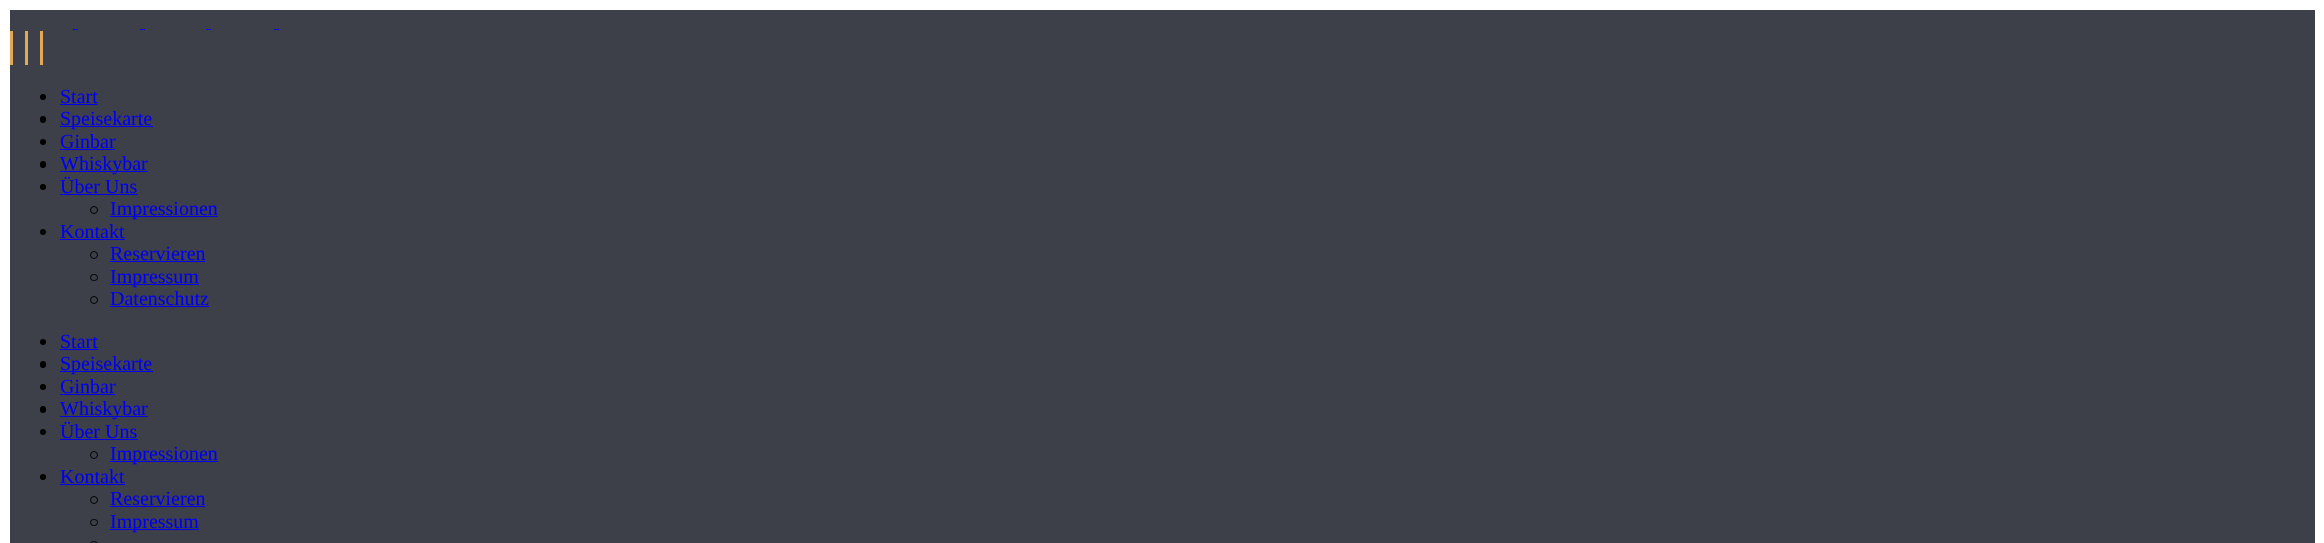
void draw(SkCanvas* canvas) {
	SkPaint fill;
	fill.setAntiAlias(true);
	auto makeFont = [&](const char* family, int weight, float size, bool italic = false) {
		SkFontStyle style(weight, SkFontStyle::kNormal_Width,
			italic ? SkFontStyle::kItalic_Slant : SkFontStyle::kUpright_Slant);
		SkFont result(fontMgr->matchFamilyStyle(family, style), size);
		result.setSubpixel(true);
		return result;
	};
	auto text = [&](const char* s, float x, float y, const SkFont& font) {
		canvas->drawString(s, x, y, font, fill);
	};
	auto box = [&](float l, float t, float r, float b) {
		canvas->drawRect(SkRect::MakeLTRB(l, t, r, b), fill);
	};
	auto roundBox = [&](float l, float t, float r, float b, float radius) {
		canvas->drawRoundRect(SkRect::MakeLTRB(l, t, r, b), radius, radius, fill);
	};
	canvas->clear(0xFFFFFFFF);
	fill.setColor(0xFF3E4049);
	box(10, 10, 2315, 543);
	fill.setColor(0xFF0000EE);
	box(73, 29, 78, 30);
	box(140, 29, 145, 30);
	box(206, 29, 211, 30);
	box(274, 29, 279, 30);
	fill.setColor(0xFFE1A856);
	box(10, 31, 13, 65);
	box(25, 31, 28, 65);
	box(40, 31, 43, 65);
	fill.setColor(0xFF000000);
	canvas->drawCircle(43, 97, 3, fill);
	fill.setColor(0xFF0000EE);
	box(60, 104, 98, 105);
	fill.setColor(0xFF000000);
	roundBox(40, 116, 46, 123, 3);
	fill.setColor(0xFF0000EE);
	box(60, 126, 153, 127);
	fill.setColor(0xFF000000);
	canvas->drawCircle(43, 142, 3, fill);
	fill.setColor(0xFF0000EE);
	box(60, 149, 115, 150);
	fill.setColor(0xFF000000);
	roundBox(40, 161, 46, 168, 3);
	fill.setColor(0xFF0000EE);
	box(60, 171, 148, 172);
	fill.setColor(0xFF000000);
	canvas->drawCircle(43, 187, 3, fill);
	fill.setColor(0xFF0000EE);
	box(60, 194, 138, 195);
	fill.setStyle(SkPaint::kStroke_Style);
	fill.setStrokeWidth(1);
	fill.setColor(0xFF000000);
	canvas->drawCircle(94, 210, 3.5f, fill);
	fill.setStyle(SkPaint::kFill_Style);
	fill.setColor(0xFF0000EE);
	box(110, 216, 218, 217);
	fill.setColor(0xFF000000);
	canvas->drawCircle(43, 232, 3, fill);
	fill.setColor(0xFF0000EE);
	box(60, 239, 125, 240);
	fill.setStyle(SkPaint::kStroke_Style);
	fill.setColor(0xFF000000);
	canvas->drawCircle(94, 255, 3.5f, fill);
	fill.setStyle(SkPaint::kFill_Style);
	fill.setColor(0xFF0000EE);
	box(110, 261, 205, 262);
	fill.setStyle(SkPaint::kStroke_Style);
	fill.setColor(0xFF000000);
	canvas->drawRoundRect(SkRect::MakeLTRB(90.5f, 274.5f, 97.5f, 280.5f), 3, 3, fill);
	fill.setStyle(SkPaint::kFill_Style);
	fill.setColor(0xFF0000EE);
	box(110, 284, 199, 285);
	fill.setStyle(SkPaint::kStroke_Style);
	fill.setColor(0xFF000000);
	canvas->drawCircle(94, 300, 3.5f, fill);
	fill.setStyle(SkPaint::kFill_Style);
	fill.setColor(0xFF0000EE);
	box(110, 306, 209, 307);
	fill.setColor(0xFF000000);
	canvas->drawCircle(43, 342, 3, fill);
	fill.setColor(0xFF0000EE);
	box(60, 349, 98, 350);
	fill.setColor(0xFF000000);
	roundBox(40, 361, 46, 368, 3);
	fill.setColor(0xFF0000EE);
	box(60, 371, 153, 372);
	fill.setColor(0xFF000000);
	canvas->drawCircle(43, 387, 3, fill);
	fill.setColor(0xFF0000EE);
	box(60, 394, 115, 395);
	fill.setColor(0xFF000000);
	roundBox(40, 406, 46, 413, 3);
	fill.setColor(0xFF0000EE);
	box(60, 416, 148, 417);
	fill.setColor(0xFF000000);
	canvas->drawCircle(43, 432, 3, fill);
	fill.setColor(0xFF0000EE);
	box(60, 439, 138, 440);
	fill.setStyle(SkPaint::kStroke_Style);
	fill.setColor(0xFF000000);
	canvas->drawCircle(94, 455, 3.5f, fill);
	fill.setStyle(SkPaint::kFill_Style);
	fill.setColor(0xFF0000EE);
	box(110, 461, 218, 462);
	fill.setColor(0xFF000000);
	canvas->drawCircle(43, 477, 3, fill);
	fill.setColor(0xFF0000EE);
	box(60, 484, 125, 485);
	fill.setStyle(SkPaint::kStroke_Style);
	fill.setColor(0xFF000000);
	canvas->drawCircle(94, 500, 3.5f, fill);
	fill.setStyle(SkPaint::kFill_Style);
	fill.setColor(0xFF0000EE);
	box(110, 506, 205, 507);
	fill.setStyle(SkPaint::kStroke_Style);
	fill.setColor(0xFF000000);
	canvas->drawRoundRect(SkRect::MakeLTRB(90.5f, 519.5f, 97.5f, 525.5f), 3, 3, fill);
	fill.setStyle(SkPaint::kFill_Style);
	fill.setColor(0xFF0000EE);
	box(110, 529, 199, 530);
	fill.setStyle(SkPaint::kStroke_Style);
	fill.setColor(0xFF000000);
	canvas->drawRoundRect(SkRect::MakeLTRB(90.5f, 541.5f, 97.5f, 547.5f), 3.5f, 3.5f, fill);
	auto font1 = makeFont("Liberation Serif", 400, 20);
	fill.setStyle(SkPaint::kFill_Style);
	fill.setColor(0xFF0000EE);
	text("Start", 60, 103, font1);
	text("Speisekarte", 60, 125, font1);
	text("Ginbar", 60, 148, font1);
	text("Whiskybar", 60, 170, font1);
	text("Über Uns", 60, 193, font1);
	text("Impressionen", 110, 215, font1);
	text("Kontakt", 60, 238, font1);
	text("Reservieren", 110, 260, font1);
	text("Impressum", 110, 283, font1);
	text("Datenschutz", 110, 305, font1);
	text("Start", 60, 348, font1);
	text("Speisekarte", 60, 370, font1);
	text("Ginbar", 60, 393, font1);
	text("Whiskybar", 60, 415, font1);
	text("Über Uns", 60, 438, font1);
	text("Impressionen", 110, 460, font1);
	text("Kontakt", 60, 483, font1);
	text("Reservieren", 110, 505, font1);
	text("Impressum", 110, 528, font1);
}
